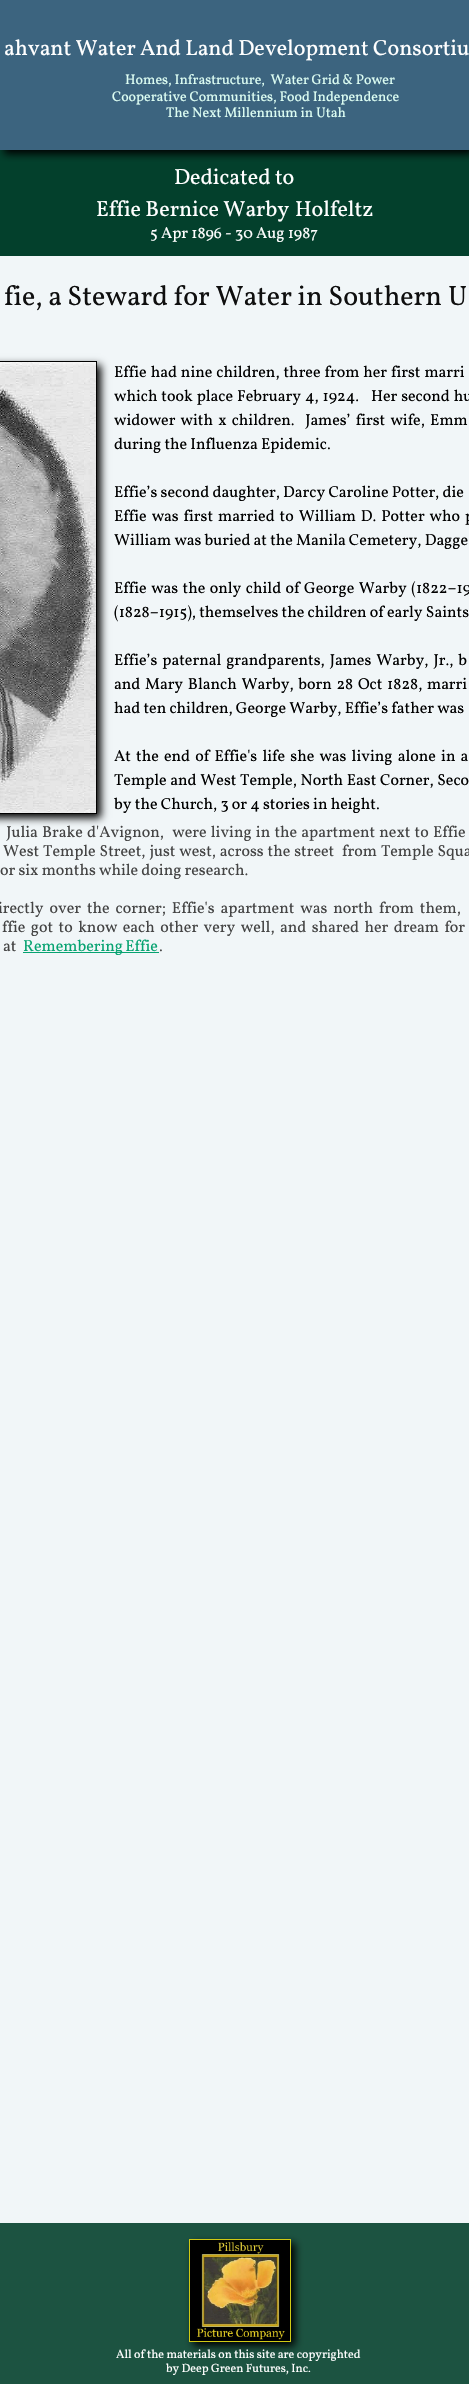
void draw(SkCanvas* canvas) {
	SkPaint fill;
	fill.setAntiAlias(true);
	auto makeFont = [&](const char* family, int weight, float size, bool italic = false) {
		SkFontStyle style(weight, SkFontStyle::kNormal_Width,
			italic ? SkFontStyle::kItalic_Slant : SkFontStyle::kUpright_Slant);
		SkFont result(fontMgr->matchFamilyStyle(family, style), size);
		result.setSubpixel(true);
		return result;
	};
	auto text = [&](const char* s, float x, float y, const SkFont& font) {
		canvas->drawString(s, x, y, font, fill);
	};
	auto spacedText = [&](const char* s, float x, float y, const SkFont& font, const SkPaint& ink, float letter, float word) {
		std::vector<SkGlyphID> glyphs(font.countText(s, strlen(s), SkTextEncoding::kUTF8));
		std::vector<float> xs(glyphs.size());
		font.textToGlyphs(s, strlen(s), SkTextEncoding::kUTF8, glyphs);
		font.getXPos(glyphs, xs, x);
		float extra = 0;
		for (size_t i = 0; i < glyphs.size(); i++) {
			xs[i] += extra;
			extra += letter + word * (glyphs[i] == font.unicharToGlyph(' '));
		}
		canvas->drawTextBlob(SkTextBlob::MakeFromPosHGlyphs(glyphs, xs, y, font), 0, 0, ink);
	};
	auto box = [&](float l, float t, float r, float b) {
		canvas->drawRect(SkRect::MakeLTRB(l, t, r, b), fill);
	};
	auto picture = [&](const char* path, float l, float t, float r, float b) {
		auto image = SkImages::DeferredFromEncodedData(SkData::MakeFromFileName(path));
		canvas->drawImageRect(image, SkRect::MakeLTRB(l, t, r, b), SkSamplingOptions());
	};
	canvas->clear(0xFF3C647F);
	fill.setColor(0xFF03402C);
	box(0, 150, 469, 256);
	canvas->save();
	canvas->clipRect(SkRect::MakeLTRB(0, 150, 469, 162));
	fill.setColor(0xFF000000);
	fill.setMaskFilter(SkMaskFilter::MakeBlur(kNormal_SkBlurStyle, 4));
	canvas->drawRect(SkRect::MakeLTRB(4, 4, 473, 154), fill);
	fill.setMaskFilter(nullptr);
	canvas->restore();
	fill.setColor(0xFFF1F6F8);
	box(0, 256, 469, 2223);
	picture("image0.png", 0, 362, 96, 813);
	canvas->save();
	canvas->clipPath(SkPathBuilder(SkPathFillType::kEvenOdd).moveTo(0, 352).lineTo(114, 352).lineTo(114, 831).lineTo(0, 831).close().moveTo(-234, 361).lineTo(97, 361).lineTo(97, 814).lineTo(-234, 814).close().detach(), true);
	fill.setColor(0xFF000000);
	fill.setMaskFilter(SkMaskFilter::MakeBlur(kNormal_SkBlurStyle, 4));
	canvas->drawRect(SkRect::MakeLTRB(-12, 365, 101, 818), fill);
	fill.setMaskFilter(nullptr);
	canvas->restore();
	fill.setStyle(SkPaint::kStroke_Style);
	fill.setStrokeWidth(1);
	canvas->drawRect(SkRect::MakeLTRB(-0.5f, 361.5f, 96.5f, 813.5f), fill);
	fill.setStyle(SkPaint::kFill_Style);
	fill.setColor(0xFF07A371);
	box(23, 952, 159, 953);
	fill.setColor(0xFF1C5341);
	box(0, 2223, 469, 2384);
	picture("image1.png", 190, 2240, 290, 2341);
	canvas->save();
	canvas->clipPath(SkPathBuilder(SkPathFillType::kEvenOdd).moveTo(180, 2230).lineTo(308, 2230).lineTo(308, 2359).lineTo(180, 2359).close().moveTo(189, 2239).lineTo(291, 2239).lineTo(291, 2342).lineTo(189, 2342).close().detach(), true);
	fill.setColor(0xFF000000);
	fill.setMaskFilter(SkMaskFilter::MakeBlur(kNormal_SkBlurStyle, 4));
	canvas->drawRect(SkRect::MakeLTRB(193, 2243, 295, 2346), fill);
	fill.setMaskFilter(nullptr);
	canvas->restore();
	fill.setStyle(SkPaint::kStroke_Style);
	fill.setColor(0xFFD0CA14);
	canvas->drawRect(SkRect::MakeLTRB(189.5f, 2239.5f, 290.5f, 2341.5f), fill);
	auto font1 = makeFont("Vollkorn", 400, 22);
	fill.setStyle(SkPaint::kFill_Style);
	fill.setColor(0xFFFFFFFF);
	text("ahvant Water And Land Development Consortiu", 4, 55, font1);
	auto font2 = makeFont("Vollkorn", 400, 14);
	fill.setColor(0xFFDDFEF3);
	text("Homes, Infrastructure,  Water Grid & Power", 125, 84, font2);
	text("Cooperative Communities, Food Independence", 112, 101, font2);
	text("The Next Millennium in Utah", 166, 117, font2);
	fill.setColor(0xFFFFFFFF);
	text("Dedicated to", 174, 184, font1);
	text("Effie Bernice Warby", 96, 216, font1);
	text("Holfeltz", 295, 216, font1);
	auto font3 = makeFont("Vollkorn", 400, 16);
	text("5 Apr 1896 - 30 Aug 1987", 150, 238, font3);
	auto font4 = makeFont("Vollkorn", 400, 28);
	fill.setColor(0xFF0F0F0F);
	text("fie, a Steward for Water in Southern U", 4, 305, font4);
	fill.setColor(0xFF000000);
	spacedText("Effie had nine children, three from her first marri", 114, 377, font3, fill, 0, 0.75f);
	spacedText("which took place February 4, 1924.   Her second hu", 114, 401, font3, fill, 0, 0.75f);
	spacedText("widower with x children.  James’ first wife, Emm", 114, 425, font3, fill, 0, 2);
	text("during the Influenza Epidemic.", 114, 449, font3);
	text("Effie’s second daughter, Darcy Caroline Potter, die", 114, 497, font3);
	spacedText("Effie was first married to William D. Potter who p", 114, 521, font3, fill, 0, 1.75f);
	text("William was buried at the Manila Cemetery, Dagge", 114, 545, font3);
	spacedText("Effie was the only child of George Warby (1822–19", 114, 593, font3, fill, 0, 1.25f);
	text("(1828–1915), themselves the children of early Saints", 114, 617, font3);
	spacedText("Effie’s paternal grandparents, James Warby, Jr., b", 114, 665, font3, fill, 0, 1.75f);
	spacedText("and Mary Blanch Warby, born 28 Oct 1828, marri", 114, 689, font3, fill, 0, 1.5f);
	text("had ten children, George Warby, Effie’s father was", 114, 713, font3);
	spacedText("At the end of Effie's life she was living alone in a", 114, 761, font3, fill, 0, 2);
	spacedText("Temple and West Temple, North East Corner, Seco", 114, 785, font3, fill, 0, 0.5f);
	text("by the Church, 3 or 4 stories in height.", 114, 809, font3);
	fill.setColor(0xFF444444);
	spacedText("Julia Brake d'Avignon,  were living in the apartment next to Effie", 6, 837, font3, fill, 0, 1);
	spacedText("West Temple Street, just west, across the street  from Temple Squa", 3, 856, font3, fill, 0, 0.75f);
	text("or six months while doing research.", 0, 875, font3);
	spacedText("irectly over the corner; Effie's apartment was north from them,", -2, 913, font3, fill, 0, 2.75f);
	spacedText("ffie got to know each other very well, and shared her dream for", 2, 932, font3, fill, 0, 2.25f);
	text("at", 3, 951, font3);
	fill.setColor(0xFF07A371);
	spacedText("Remembering Effie", 23, 951, font3, fill, 0, -1);
	fill.setColor(0xFF444444);
	text(".", 159, 951, font3);
	auto font5 = makeFont("Vollkorn", 400, 12);
	fill.setColor(0xFFFFFFFF);
	text("All of the materials on this site are copyrighted", 116, 2358, font5);
	text("by Deep Green Futures, Inc.", 166, 2372, font5);
}
